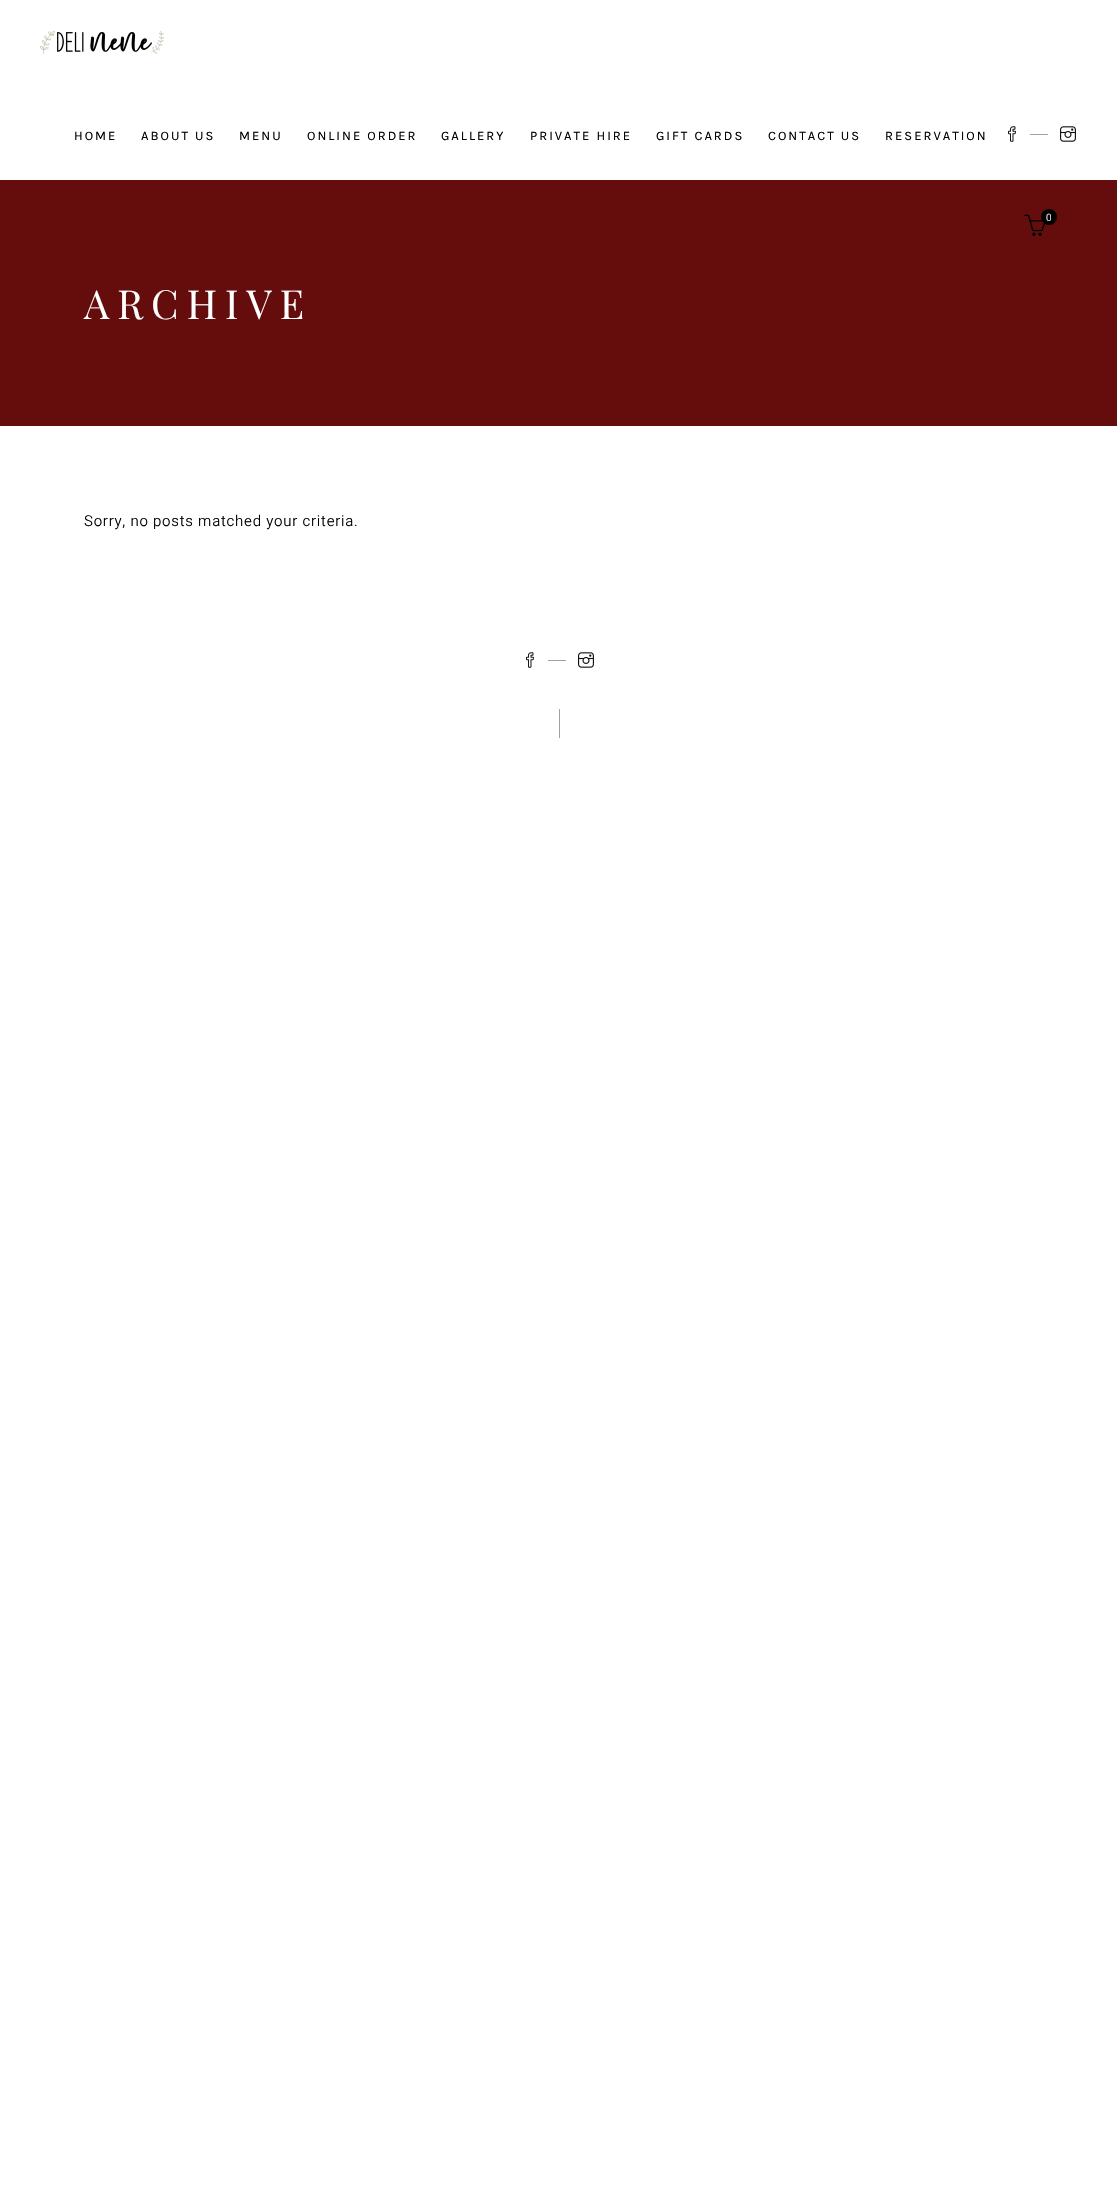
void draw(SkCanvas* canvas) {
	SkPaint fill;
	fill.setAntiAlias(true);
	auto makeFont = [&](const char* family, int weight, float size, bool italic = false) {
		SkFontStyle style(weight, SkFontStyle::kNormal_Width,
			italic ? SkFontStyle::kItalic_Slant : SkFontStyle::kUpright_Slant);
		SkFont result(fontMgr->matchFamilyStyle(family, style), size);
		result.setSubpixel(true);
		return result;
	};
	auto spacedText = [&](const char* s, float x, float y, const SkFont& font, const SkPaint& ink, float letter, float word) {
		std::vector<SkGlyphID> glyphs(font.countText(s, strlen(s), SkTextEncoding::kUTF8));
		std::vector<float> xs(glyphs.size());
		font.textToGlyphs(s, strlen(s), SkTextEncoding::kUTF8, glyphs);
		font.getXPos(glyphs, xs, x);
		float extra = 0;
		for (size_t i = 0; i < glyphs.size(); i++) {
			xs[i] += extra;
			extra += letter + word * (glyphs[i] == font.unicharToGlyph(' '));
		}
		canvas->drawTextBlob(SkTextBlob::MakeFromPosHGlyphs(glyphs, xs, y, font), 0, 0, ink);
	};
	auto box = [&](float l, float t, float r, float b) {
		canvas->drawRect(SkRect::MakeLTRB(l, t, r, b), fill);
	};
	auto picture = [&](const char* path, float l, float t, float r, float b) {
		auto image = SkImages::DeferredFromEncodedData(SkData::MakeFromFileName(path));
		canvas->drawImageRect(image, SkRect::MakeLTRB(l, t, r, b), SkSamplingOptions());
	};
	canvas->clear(0xFFFFFFFF);
	picture("image0.png", 40, 31, 164, 54);
	picture("image1.png", 1008, 126, 1016, 142);
	fill.setColor(0xFFA1A1A1);
	box(1030, 134, 1048, 135);
	picture("image2.png", 1060, 126, 1076, 142);
	fill.setColor(0xFF650D0D);
	box(0, 180, 1117, 426);
	picture("image3.png", 1024, 214, 1046, 236);
	fill.setColor(0xFF000000);
	canvas->drawCircle(1049, 217, 8, fill);
	picture("image1.png", 526, 652, 534, 668);
	fill.setColor(0xFFA1A1A1);
	box(548, 660, 566, 661);
	picture("image2.png", 578, 652, 594, 668);
	box(559, 709, 560, 738);
	auto font1 = makeFont("Karla", 400, 13);
	fill.setColor(0xFF000000);
	spacedText("HOME", 74, 140, font1, fill, 2, 0);
	spacedText("ABOUT US", 141, 140, font1, fill, 2, 0);
	spacedText("MENU", 239, 140, font1, fill, 2, 0);
	spacedText("ONLINE ORDER", 307, 140, font1, fill, 2, 0);
	spacedText("GALLERY", 441, 140, font1, fill, 2, 0);
	spacedText("PRIVATE HIRE", 530, 140, font1, fill, 2, 0);
	spacedText("GIFT CARDS", 656, 140, font1, fill, 2, 0);
	spacedText("CONTACT US", 768, 140, font1, fill, 2, 0);
	spacedText("RESERVATION", 885, 140, font1, fill, 2, 0);
	auto font2 = makeFont("Heebo", 300, 10);
	fill.setColor(0xFFFFFFFF);
	spacedText("0", 1046, 221, font2, fill, 0.75f, 0);
	auto font3 = makeFont("Playfair Display", 400, 40);
	spacedText("ARCHIVE", 84, 319, font3, fill, 8, 0);
	auto font4 = makeFont("Heebo", 300, 15);
	fill.setColor(0xFF000000);
	spacedText("Sorry, no posts matched your criteria.", 84, 526, font4, fill, 0.75f, 0);
}
